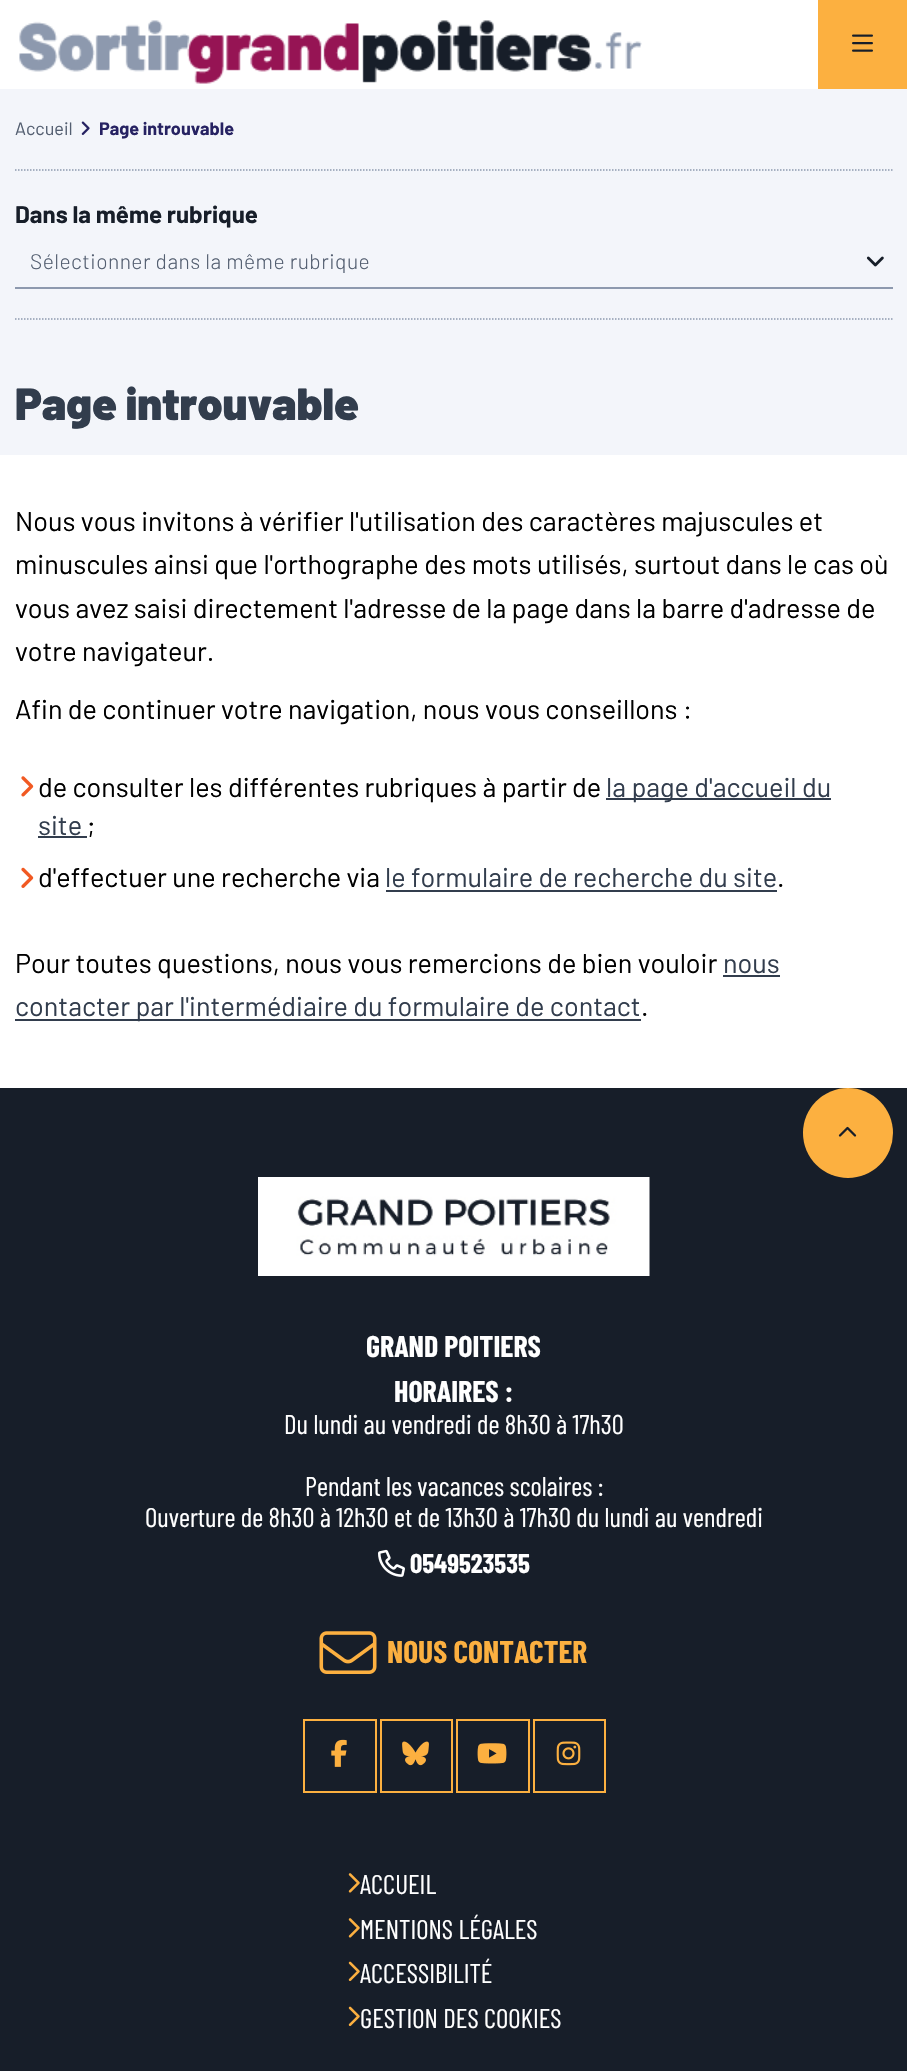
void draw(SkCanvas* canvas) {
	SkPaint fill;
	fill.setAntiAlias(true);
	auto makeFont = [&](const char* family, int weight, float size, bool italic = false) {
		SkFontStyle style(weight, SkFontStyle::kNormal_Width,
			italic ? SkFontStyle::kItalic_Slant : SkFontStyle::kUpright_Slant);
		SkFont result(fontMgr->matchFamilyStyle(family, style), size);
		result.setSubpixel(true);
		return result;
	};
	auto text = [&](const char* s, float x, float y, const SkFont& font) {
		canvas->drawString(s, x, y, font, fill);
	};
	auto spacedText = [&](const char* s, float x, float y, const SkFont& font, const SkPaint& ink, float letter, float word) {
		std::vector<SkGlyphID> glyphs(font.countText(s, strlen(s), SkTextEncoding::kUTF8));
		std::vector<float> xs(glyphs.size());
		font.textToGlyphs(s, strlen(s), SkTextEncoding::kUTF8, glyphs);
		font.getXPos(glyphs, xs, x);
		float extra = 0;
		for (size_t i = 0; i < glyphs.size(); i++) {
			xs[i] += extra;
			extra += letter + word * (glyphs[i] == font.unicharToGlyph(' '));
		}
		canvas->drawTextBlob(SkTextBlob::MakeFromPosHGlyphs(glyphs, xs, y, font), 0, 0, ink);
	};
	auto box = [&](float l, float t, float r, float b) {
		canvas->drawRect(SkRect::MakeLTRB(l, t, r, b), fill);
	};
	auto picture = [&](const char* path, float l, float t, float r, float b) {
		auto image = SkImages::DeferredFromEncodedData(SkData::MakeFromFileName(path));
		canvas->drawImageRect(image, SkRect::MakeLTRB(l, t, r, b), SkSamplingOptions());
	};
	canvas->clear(0xFFFFFFFF);
	picture("image0.png", 19, 20, 642, 84);
	fill.setColor(0xFFFCB040);
	box(818, 0, 907, 89);
	picture("image1.png", 852, 34, 873, 52);
	fill.setColor(0xFFF3F5FA);
	box(0, 89, 907, 455);
	picture("image2.png", 81, 121, 90, 135);
	fill.setStyle(SkPaint::kStroke_Style);
	fill.setStrokeWidth(1.5f);
	fill.setColor(0xFF8D99AE);
	fill.setPathEffect(SkDashPathEffect::Make({{1.5f, 1.5f}}, 0));
	canvas->drawPath(SkPathBuilder().moveTo(15, 170).lineTo(892.5f, 170).detach(), fill);
	fill.setPathEffect(nullptr);
	fill.setPathEffect(SkDashPathEffect::Make({{1.5f, 1.5f}}, 0));
	canvas->drawPath(SkPathBuilder().moveTo(15, 319).lineTo(892.5f, 319).detach(), fill);
	fill.setPathEffect(nullptr);
	fill.setStyle(SkPaint::kFill_Style);
	box(15, 287, 893, 289);
	picture("image3.png", 866, 256, 884, 267);
	picture("image4.png", 21, 776, 34, 797);
	fill.setColor(0xFF323D4D);
	box(606, 798, 831, 800);
	box(38, 836, 87, 838);
	picture("image5.png", 21, 867, 34, 888);
	box(386, 890, 777, 892);
	box(723, 975, 780, 977);
	box(15, 1019, 641, 1021);
	fill.setColor(0xFF171E29);
	box(0, 1088, 907, 2071);
	fill.setColor(0xFFFCB040);
	canvas->drawCircle(848, 1133, 45, fill);
	picture("image6.png", 838, 1126, 857, 1137);
	picture("image7.png", 258, 1177, 650, 1276);
	picture("image8.png", 378, 1549, 405, 1577);
	picture("image9.png", 319, 1631, 377, 1674);
	fill.setStyle(SkPaint::kStroke_Style);
	fill.setStrokeWidth(2);
	canvas->drawRect(SkRect::MakeLTRB(304, 1720, 376, 1792), fill);
	picture("image10.png", 331, 1739, 347, 1767);
	canvas->drawRect(SkRect::MakeLTRB(381, 1720, 452, 1792), fill);
	picture("image11.png", 402, 1741, 429, 1766);
	canvas->drawRect(SkRect::MakeLTRB(457, 1720, 529, 1792), fill);
	picture("image12.png", 477, 1743, 507, 1764);
	canvas->drawRect(SkRect::MakeLTRB(534, 1720, 605, 1792), fill);
	picture("image13.png", 556, 1741, 581, 1766);
	picture("image14.png", 348, 1873, 360, 1893);
	picture("image14.png", 348, 1918, 360, 1938);
	picture("image15.png", 348, 1961, 360, 1981);
	picture("image15.png", 348, 2006, 360, 2026);
	auto font1 = makeFont("Barlow", 400, 18);
	fill.setStyle(SkPaint::kFill_Style);
	fill.setColor(0xFF545F71);
	text("Accueil", 15, 135, font1);
	auto font2 = makeFont("Barlow", 700, 18);
	fill.setColor(0xFF262262);
	text("Page introuvable", 99, 135, font2);
	auto font3 = makeFont("Barlow", 700, 24);
	fill.setColor(0xFF171E29);
	text("Dans la même rubrique", 15, 223, font3);
	auto font4 = makeFont("Barlow", 300, 21);
	fill.setColor(0xFF545F71);
	spacedText("Sélectionner dans la même rubrique", 30, 269, font4, fill, 0.45f, 0);
	auto font5 = makeFont("Barlow", 900, 45);
	fill.setColor(0xFF323D4D);
	text("Page introuvable", 15, 420, font5);
	auto font6 = makeFont("Barlow", 400, 27);
	fill.setColor(0xFF000000);
	text("Nous vous invitons à vérifier l'utilisation des caractères majuscules et", 15, 531, font6);
	text("minuscules ainsi que l'orthographe des mots utilisés, surtout dans le cas où", 15, 574, font6);
	text("vous avez saisi directement l'adresse de la page dans la barre d'adresse de", 15, 618, font6);
	text("votre navigateur.", 15, 661, font6);
	text("Afin de continuer votre navigation, nous vous conseillons :", 15, 719, font6);
	text("de consulter les différentes rubriques à partir de", 38, 797, font6);
	fill.setColor(0xFF323D4D);
	text("la page d'accueil du", 606, 797, font6);
	text("site", 38, 835, font6);
	fill.setColor(0xFF000000);
	text(";", 87, 835, font6);
	text("d'effectuer une recherche via", 38, 887, font6);
	fill.setColor(0xFF323D4D);
	text("le formulaire de recherche du site", 385, 887, font6);
	fill.setColor(0xFF000000);
	text(".", 777, 887, font6);
	text("Pour toutes questions, nous vous remercions de bien vouloir", 15, 973, font6);
	fill.setColor(0xFF323D4D);
	text("nous", 723, 973, font6);
	text("contacter par l'intermédiaire du formulaire de contact", 15, 1016, font6);
	fill.setColor(0xFF000000);
	text(".", 641, 1016, font6);
	auto font7 = makeFont("Barlow Condensed", 700, 30);
	fill.setColor(0xFFFFFFFF);
	text("GRAND POITIERS", 366, 1357, font7);
	text("HORAIRES :", 394, 1402, font7);
	auto font8 = makeFont("Barlow Condensed", 400, 27);
	text("Du lundi au vendredi de 8h30 à 17h30", 284, 1434, font8);
	text("Pendant les vacances scolaires :", 305, 1496, font8);
	text("Ouverture de 8h30 à 12h30 et de 13h30 à 17h30 du lundi au vendredi", 145, 1527, font8);
	auto font9 = makeFont("Barlow Condensed", 700, 27);
	text("0549523535", 410, 1573, font9);
	auto font10 = makeFont("Barlow Condensed", 700, 31.5f);
	fill.setColor(0xFFFCB040);
	text("NOUS CONTACTER", 387, 1663, font10);
	fill.setColor(0xFFFFFFFF);
	text("ACCUEIL", 360, 1894, font8);
	text("MENTIONS LÉGALES", 360, 1939, font8);
	text("ACCESSIBILITÉ", 360, 1983, font8);
	text("GESTION DES COOKIES", 360, 2028, font8);
}
